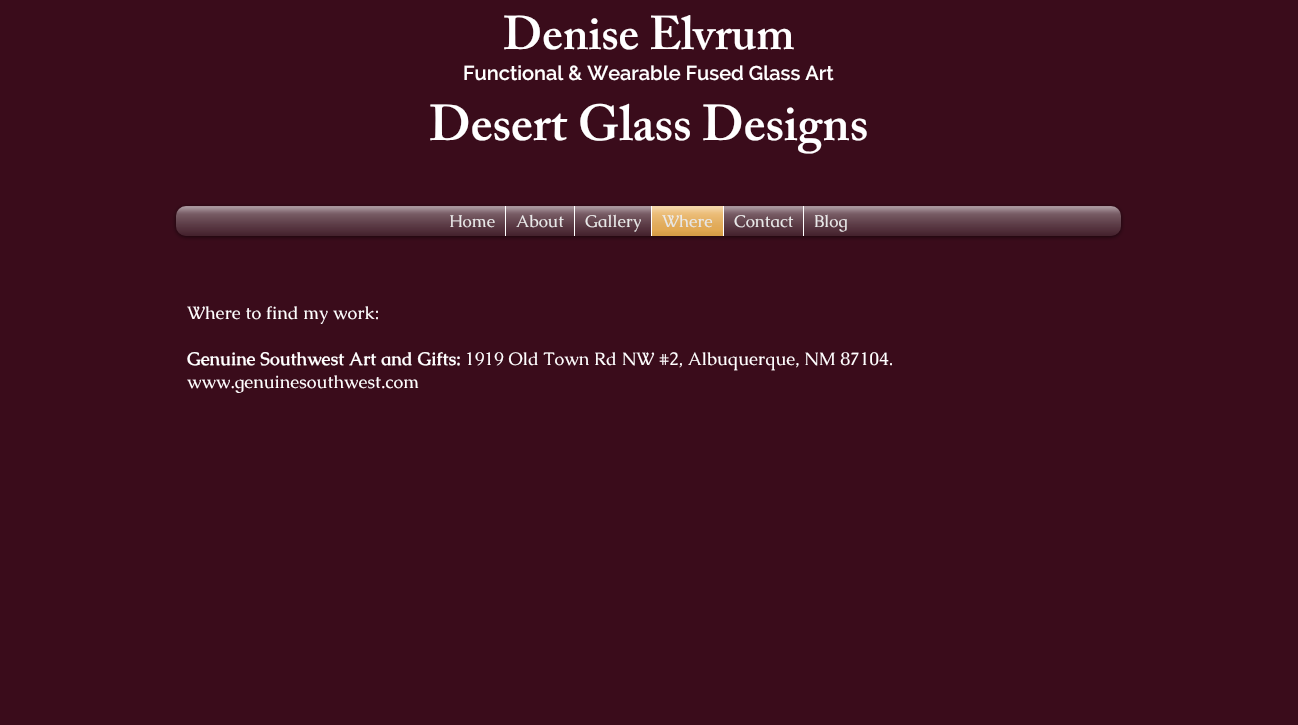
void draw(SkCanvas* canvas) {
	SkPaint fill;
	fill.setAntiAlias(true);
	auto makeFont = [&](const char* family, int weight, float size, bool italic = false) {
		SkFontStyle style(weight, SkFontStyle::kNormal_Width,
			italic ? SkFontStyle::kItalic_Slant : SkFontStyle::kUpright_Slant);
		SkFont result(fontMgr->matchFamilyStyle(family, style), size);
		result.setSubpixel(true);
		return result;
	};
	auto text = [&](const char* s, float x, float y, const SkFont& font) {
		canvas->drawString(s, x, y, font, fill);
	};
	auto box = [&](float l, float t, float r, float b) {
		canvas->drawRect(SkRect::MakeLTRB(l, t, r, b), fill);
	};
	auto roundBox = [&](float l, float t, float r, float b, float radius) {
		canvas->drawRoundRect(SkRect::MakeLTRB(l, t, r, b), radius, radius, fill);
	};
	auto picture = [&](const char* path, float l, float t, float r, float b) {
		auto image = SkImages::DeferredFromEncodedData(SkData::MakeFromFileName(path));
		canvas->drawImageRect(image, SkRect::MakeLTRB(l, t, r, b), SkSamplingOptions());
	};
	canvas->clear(0xFF3A0C1B);
	fill.setColor(0x99000000);
	fill.setMaskFilter(SkMaskFilter::MakeBlur(kNormal_SkBlurStyle, 2));
	canvas->drawRoundRect(SkRect::MakeLTRB(176, 207, 1121, 237), 10, 10, fill);
	fill.setMaskFilter(nullptr);
	fill.setColor(0xFF3A0C1B);
	roundBox(176, 206, 1121, 236, 10);
	picture("image0.png", 176, 206, 1121, 236);
	picture("image1.png", 176, 206, 1121, 236);
	box(439, 206, 505, 236);
	box(506, 206, 574, 236);
	fill.setColor(0xFFFFFFFF);
	box(505, 206, 506, 236);
	fill.setColor(0xFF3A0C1B);
	box(575, 206, 651, 236);
	fill.setColor(0xFFFFFFFF);
	box(574, 206, 575, 236);
	fill.setColor(0xFFF9AD3B);
	box(652, 206, 723, 236);
	fill.setColor(0xFFFFFFFF);
	box(651, 206, 652, 236);
	fill.setColor(0xFF3A0C1B);
	box(724, 206, 803, 236);
	fill.setColor(0xFFFFFFFF);
	box(723, 206, 724, 236);
	fill.setColor(0xFF3A0C1B);
	box(804, 206, 858, 236);
	fill.setColor(0xFFFFFFFF);
	box(803, 206, 804, 236);
	auto font1 = makeFont("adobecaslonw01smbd", 600, 47);
	text("Denise Elvrum", 503, 49, font1);
	auto font2 = makeFont("Raleway", 600, 20);
	text("Functional & Wearable Fused Glass Art", 463, 80, font2);
	auto font3 = makeFont("adobecaslonw01smbd", 600, 50);
	text("Desert Glass Designs", 429, 140, font3);
	auto font4 = makeFont("Caudex", 400, 17);
	text("Home", 449, 227, font4);
	picture("image2.png", 439, 206, 505, 236);
	picture("image3.png", 439, 206, 505, 236);
	text("About", 516, 227, font4);
	picture("image4.png", 506, 206, 574, 236);
	picture("image5.png", 506, 206, 574, 236);
	text("Gallery", 585, 227, font4);
	picture("image6.png", 575, 206, 651, 236);
	picture("image7.png", 575, 206, 651, 236);
	text("Where", 662, 227, font4);
	picture("image8.png", 652, 206, 723, 236);
	picture("image9.png", 652, 206, 723, 236);
	text("Contact", 734, 227, font4);
	picture("image10.png", 724, 206, 803, 236);
	picture("image11.png", 724, 206, 803, 236);
	text("Blog", 814, 227, font4);
	picture("image12.png", 804, 206, 858, 236);
	picture("image13.png", 804, 206, 858, 236);
	auto font5 = makeFont("Caudex", 400, 18);
	text("Where to find my work:", 187, 319, font5);
	auto font6 = makeFont("Caudex", 700, 18);
	text("Genuine Southwest Art and Gifts:", 187, 365, font6);
	text("1919 Old Town Rd NW #2, Albuquerque, NM 87104.", 465, 365, font5);
	text("www.genuinesouthwest.com", 187, 388, font5);
}
